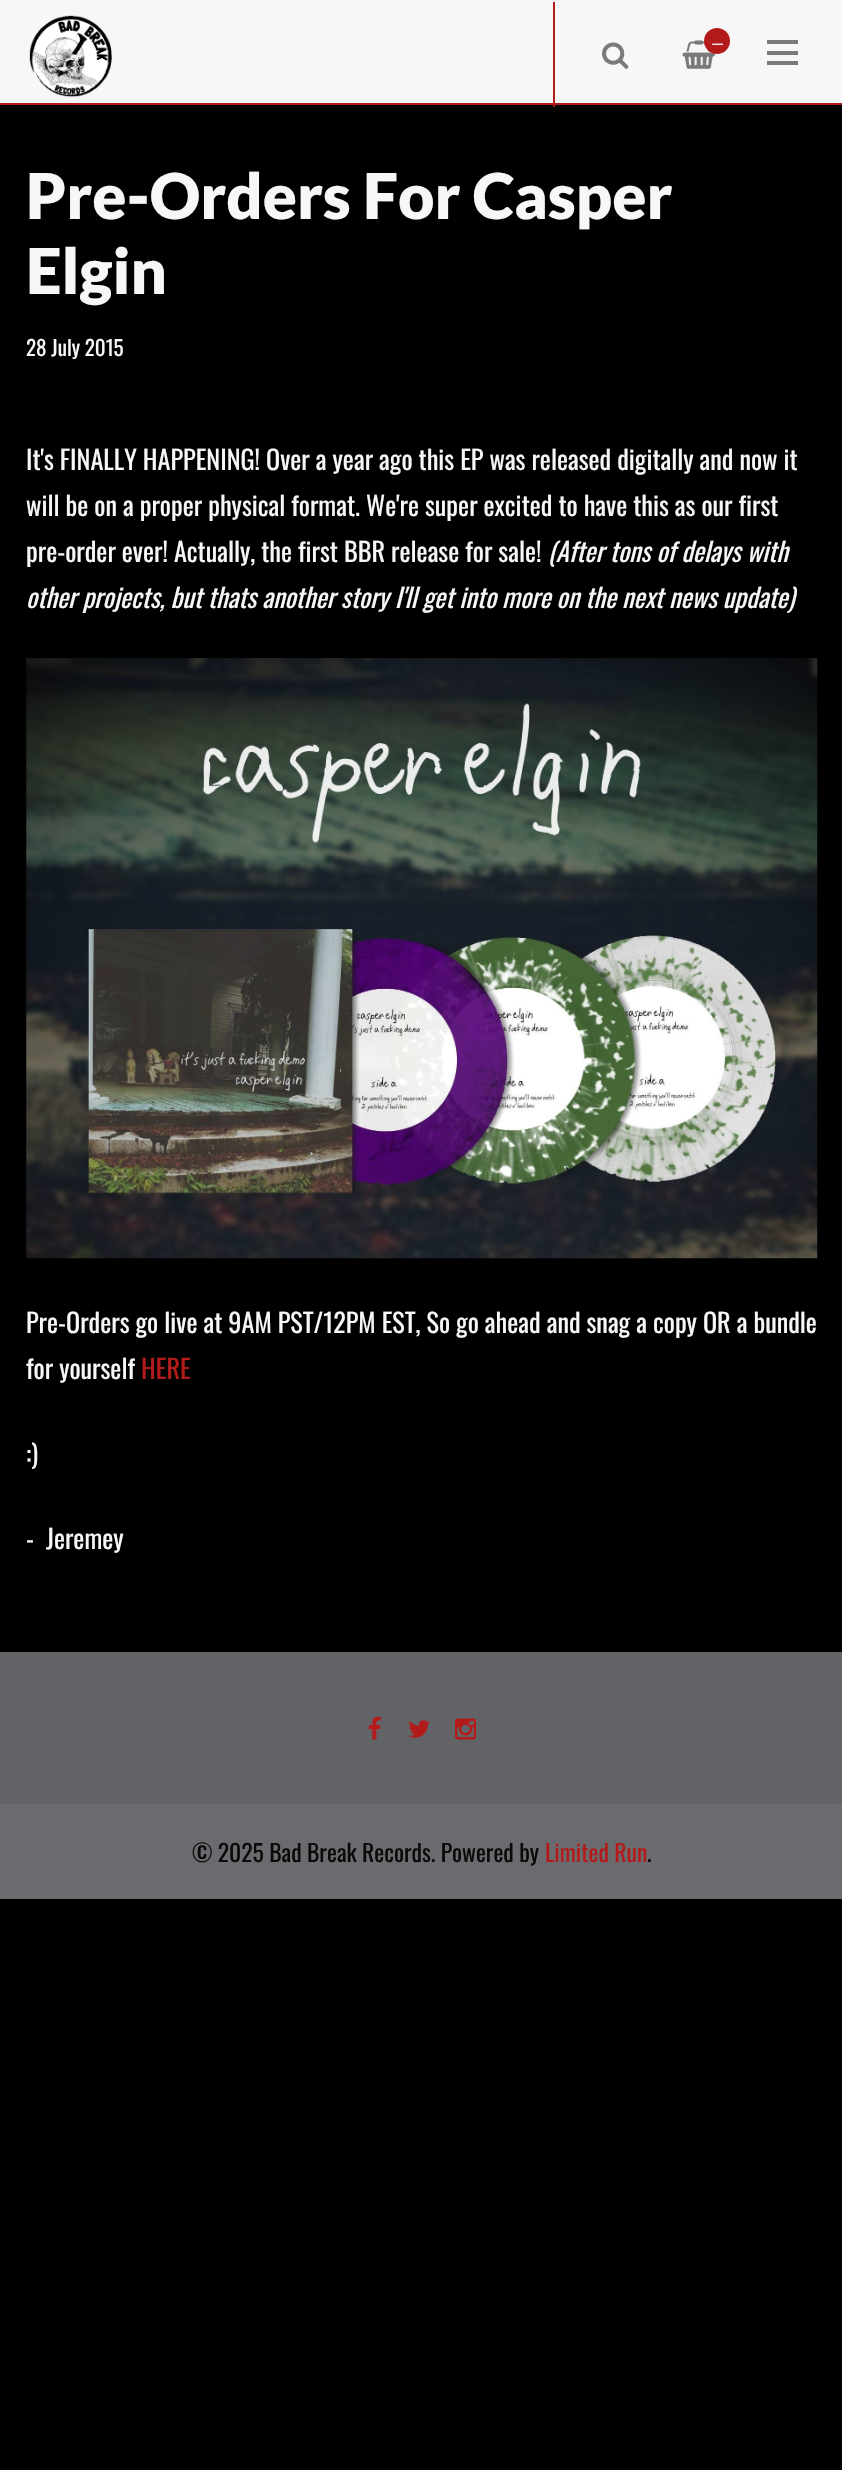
void draw(SkCanvas* canvas) {
	SkPaint fill;
	fill.setAntiAlias(true);
	auto makeFont = [&](const char* family, int weight, float size, bool italic = false) {
		SkFontStyle style(weight, SkFontStyle::kNormal_Width,
			italic ? SkFontStyle::kItalic_Slant : SkFontStyle::kUpright_Slant);
		SkFont result(fontMgr->matchFamilyStyle(family, style), size);
		result.setSubpixel(true);
		return result;
	};
	auto text = [&](const char* s, float x, float y, const SkFont& font) {
		canvas->drawString(s, x, y, font, fill);
	};
	auto spacedText = [&](const char* s, float x, float y, const SkFont& font, const SkPaint& ink, float letter, float word) {
		std::vector<SkGlyphID> glyphs(font.countText(s, strlen(s), SkTextEncoding::kUTF8));
		std::vector<float> xs(glyphs.size());
		font.textToGlyphs(s, strlen(s), SkTextEncoding::kUTF8, glyphs);
		font.getXPos(glyphs, xs, x);
		float extra = 0;
		for (size_t i = 0; i < glyphs.size(); i++) {
			xs[i] += extra;
			extra += letter + word * (glyphs[i] == font.unicharToGlyph(' '));
		}
		canvas->drawTextBlob(SkTextBlob::MakeFromPosHGlyphs(glyphs, xs, y, font), 0, 0, ink);
	};
	auto box = [&](float l, float t, float r, float b) {
		canvas->drawRect(SkRect::MakeLTRB(l, t, r, b), fill);
	};
	auto picture = [&](const char* path, float l, float t, float r, float b) {
		auto image = SkImages::DeferredFromEncodedData(SkData::MakeFromFileName(path));
		canvas->drawImageRect(image, SkRect::MakeLTRB(l, t, r, b), SkSamplingOptions());
	};
	canvas->clear(0xFF000000);
	fill.setColor(0xFFF7F7F7);
	box(0, 0, 842, 103);
	fill.setColor(0xFFB31B1B);
	box(0, 103, 842, 105);
	picture("image0.png", 29, 15, 112, 97);
	box(553, 2, 555, 107);
	picture("image1.png", 602, 42, 629, 69);
	picture("image2.png", 682, 40, 715, 69);
	canvas->drawCircle(717, 41, 13, fill);
	fill.setColor(0xFF7A7A7A);
	box(767, 51, 798, 55);
	box(767, 40, 798, 44);
	box(767, 61, 798, 65);
	picture("image3.png", 26, 658, 818, 1259);
	fill.setColor(0xFF626366);
	box(0, 1652, 842, 1804);
	picture("image4.png", 368, 1716, 381, 1740);
	picture("image5.png", 408, 1720, 430, 1738);
	picture("image6.png", 455, 1718, 476, 1740);
	fill.setColor(0xFF6A6B6E);
	box(0, 1804, 842, 1899);
	auto font1 = makeFont("Lato", 400, 16);
	fill.setColor(0xFFFFFFFF);
	spacedText("—", 711, 49, font1, fill, 1, 0);
	auto font2 = makeFont("Lato", 900, 63);
	fill.setColor(0xFFF7F7F7);
	text("Pre-Orders For Casper", 26, 219, font2);
	text("Elgin", 26, 294, font2);
	auto font3 = makeFont("Oswald", 400, 21);
	text("28 July 2015", 26, 356, font3);
	auto font4 = makeFont("Oswald", 400, 26.25f);
	text("It's FINALLY HAPPENING! Over a year ago this EP was released digitally and now it", 26, 470, font4);
	text("will be on a proper physical format. We're super excited to have this as our first", 26, 516, font4);
	text("pre-order ever! Actually, the first BBR release for sale!", 26, 562, font4);
	auto font5 = makeFont("Oswald", 400, 26.25f, true);
	text("(After tons of delays with", 548, 562, font5);
	text("other projects, but thats another story I'll get into more on the next news update)", 26, 608, font5);
	text("Pre-Orders go live at 9AM PST/12PM EST, So go ahead and snag a copy OR a bundle", 26, 1333, font4);
	text("for yourself", 26, 1379, font4);
	fill.setColor(0xFFB31B1B);
	text("HERE", 141, 1379, font4);
	fill.setColor(0xFFF7F7F7);
	text(":)", 26, 1464, font4);
	text("-  Jeremey", 26, 1549, font4);
	auto font6 = makeFont("Oswald", 400, 23.6f);
	fill.setColor(0xFF0A0A0A);
	text("© 2025 Bad Break Records. Powered by", 192, 1862, font6);
	fill.setColor(0xFFB31B1B);
	text("Limited Run", 545, 1862, font6);
	fill.setColor(0xFF0A0A0A);
	text(".", 647, 1862, font6);
}
